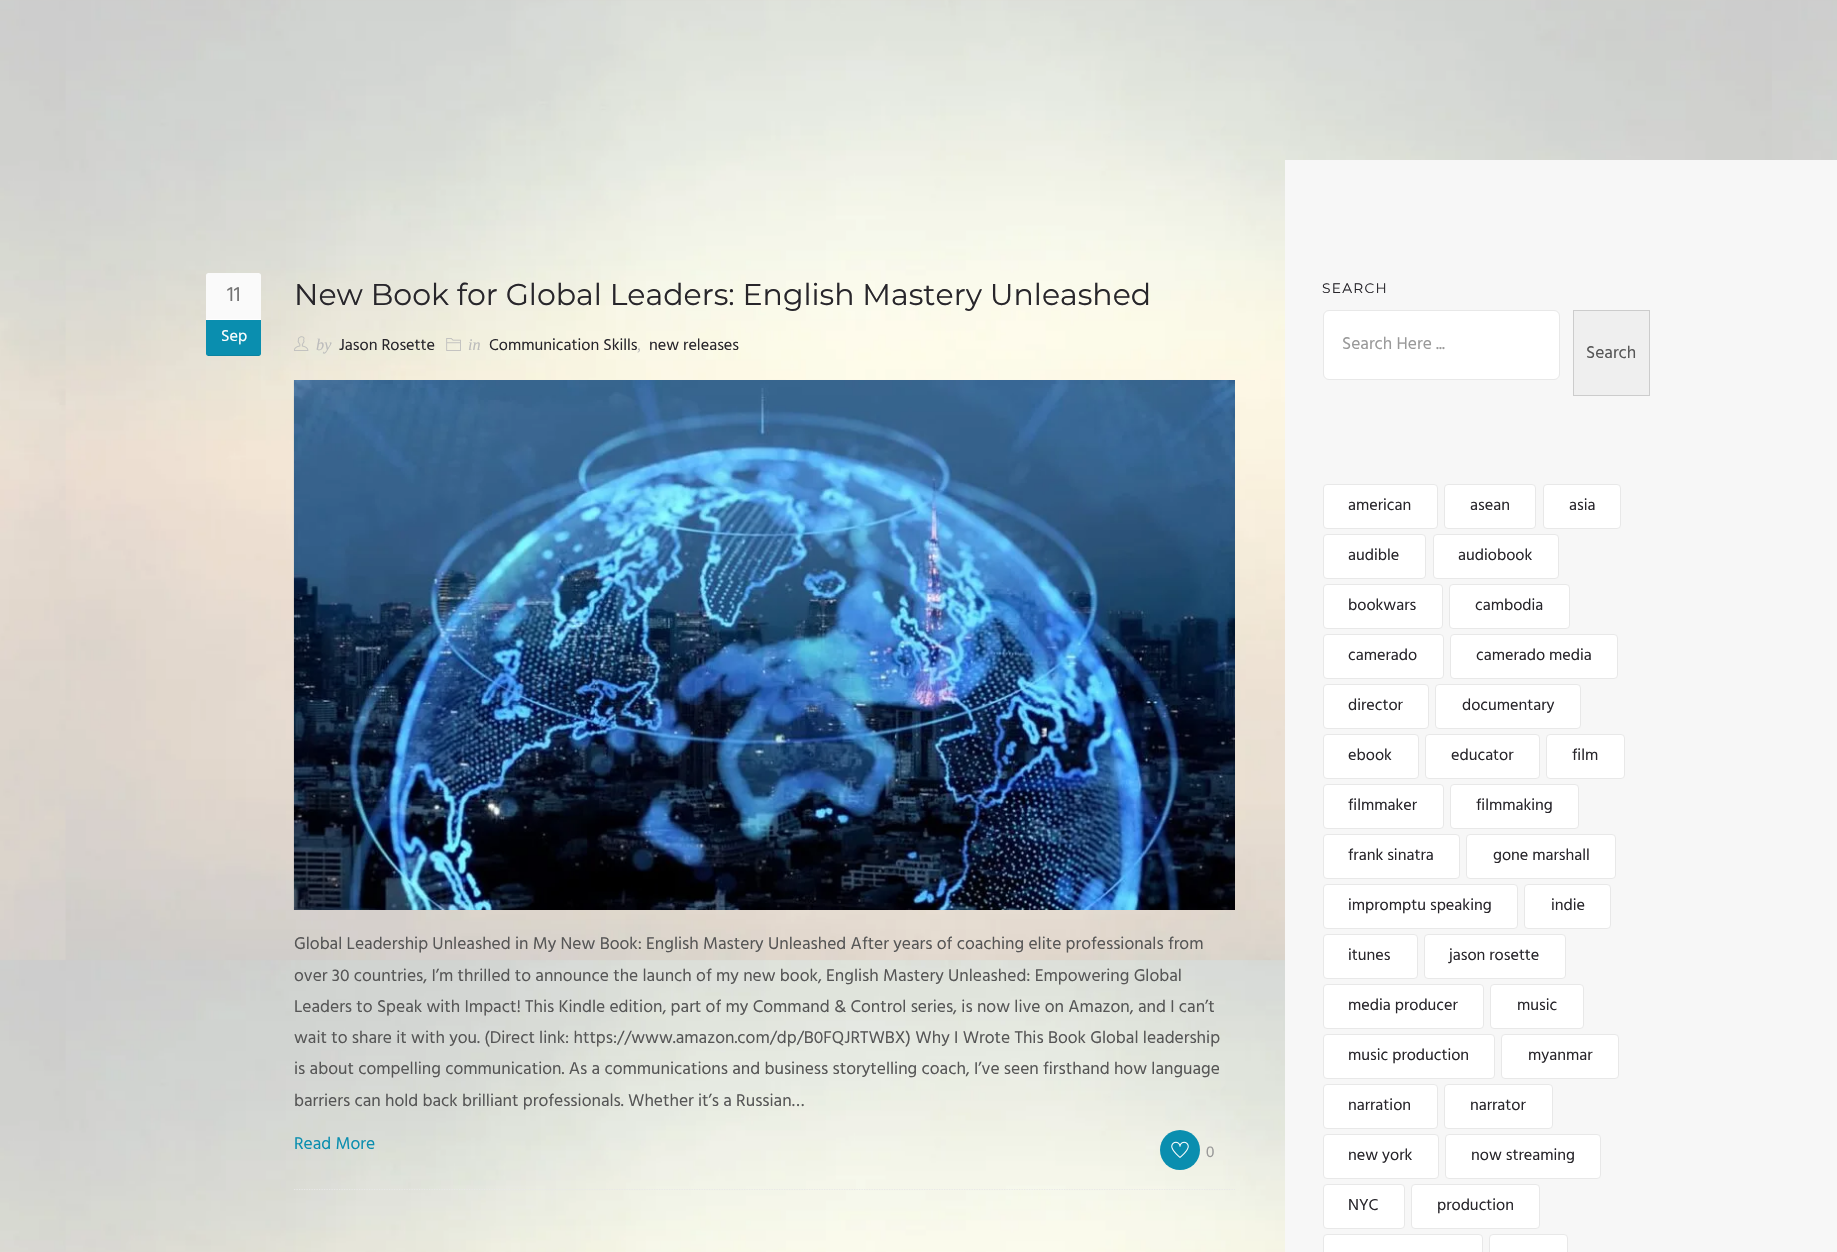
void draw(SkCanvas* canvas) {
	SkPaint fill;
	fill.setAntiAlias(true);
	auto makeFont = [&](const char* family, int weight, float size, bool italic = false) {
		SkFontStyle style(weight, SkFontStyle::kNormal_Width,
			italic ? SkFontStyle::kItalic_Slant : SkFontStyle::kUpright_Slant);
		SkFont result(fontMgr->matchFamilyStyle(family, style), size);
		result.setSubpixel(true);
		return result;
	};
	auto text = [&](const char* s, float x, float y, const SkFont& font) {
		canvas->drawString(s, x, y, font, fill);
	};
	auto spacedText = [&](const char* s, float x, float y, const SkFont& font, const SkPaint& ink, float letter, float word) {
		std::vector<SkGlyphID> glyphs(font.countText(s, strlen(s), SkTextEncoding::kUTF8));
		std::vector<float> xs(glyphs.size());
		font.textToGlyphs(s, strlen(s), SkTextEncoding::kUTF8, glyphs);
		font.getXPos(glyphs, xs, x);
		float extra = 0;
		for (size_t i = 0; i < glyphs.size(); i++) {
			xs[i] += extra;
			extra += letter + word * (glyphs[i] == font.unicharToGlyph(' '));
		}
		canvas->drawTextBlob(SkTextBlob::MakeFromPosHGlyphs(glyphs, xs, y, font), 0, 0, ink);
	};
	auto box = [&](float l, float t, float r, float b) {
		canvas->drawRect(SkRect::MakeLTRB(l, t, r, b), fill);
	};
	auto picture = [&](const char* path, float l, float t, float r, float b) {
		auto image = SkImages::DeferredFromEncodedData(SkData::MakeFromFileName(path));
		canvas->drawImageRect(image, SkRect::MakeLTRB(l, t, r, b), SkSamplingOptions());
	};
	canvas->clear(0xFFFFFFFF);
	picture("image0.png", 0, 0, 1837, 1252);
	fill.setColor(0xFFFAFAFA);
	canvas->drawPath(SkPathBuilder().moveTo(208.5f, 273).lineTo(258.5f, 273).cubicTo(260, 273, 261, 274, 261, 275.5f).lineTo(261, 320).lineTo(206, 320).lineTo(206, 275.5f).cubicTo(206, 274, 207, 273, 208.5f, 273).close().detach(), fill);
	fill.setColor(0xFFFFFFFF);
	box(206, 319, 261, 320);
	fill.setColor(0xFF0A8EAF);
	canvas->drawPath(SkPathBuilder().moveTo(206, 320).lineTo(261, 320).lineTo(261, 353.5f).cubicTo(261, 355, 260, 356, 258.5f, 356).lineTo(208.5f, 356).cubicTo(207, 356, 206, 355, 206, 353.5f).close().detach(), fill);
	fill.setColor(0x14000000);
	box(208, 355, 260, 356);
	canvas->save();
	canvas->clipRect(SkRect::MakeLTRB(206, 273, 1235, 1190));
	fill.setStyle(SkPaint::kStroke_Style);
	fill.setStrokeWidth(1.2f);
	fill.setColor(0xFFE8E8E8);
	fill.setPathEffect(SkDashPathEffect::Make({{1.25f, 1.25f}}, 0));
	canvas->drawPath(SkPathBuilder().moveTo(294, 1189.5f).lineTo(1235, 1189.5f).detach(), fill);
	fill.setPathEffect(nullptr);
	canvas->restore();
	picture("image1.png", 294, 336, 309, 351);
	picture("image2.png", 446, 338, 461, 351);
	picture("image3.png", 293, 380, 1235, 910);
	fill.setStyle(SkPaint::kFill_Style);
	fill.setColor(0xFF0A8EAF);
	canvas->drawCircle(1180, 1150, 20, fill);
	picture("image4.png", 1171, 1141, 1189, 1158);
	fill.setColor(0xFFF7F7F7);
	box(1285, 160, 1837, 1252);
	fill.setColor(0xFFFFFFFF);
	canvas->drawRoundRect(SkRect::MakeLTRB(1323.5f, 310.5f, 1559.5f, 379.5f), 5.5f, 5.5f, fill);
	fill.setStyle(SkPaint::kStroke_Style);
	fill.setStrokeWidth(1);
	fill.setColor(0xFFE8E8E8);
	canvas->drawRoundRect(SkRect::MakeLTRB(1323.5f, 310.5f, 1559.5f, 379.5f), 5.5f, 5.5f, fill);
	fill.setStyle(SkPaint::kFill_Style);
	fill.setColor(0xFFEFEFEF);
	canvas->drawRect(SkRect::MakeLTRB(1573.5f, 310.5f, 1649.5f, 395.5f), fill);
	fill.setStyle(SkPaint::kStroke_Style);
	fill.setColor(0xFFCCCCCC);
	canvas->drawRect(SkRect::MakeLTRB(1573.5f, 310.5f, 1649.5f, 395.5f), fill);
	fill.setStyle(SkPaint::kFill_Style);
	fill.setColor(0xFFFFFFFF);
	canvas->drawRoundRect(SkRect::MakeLTRB(1323.5f, 484.5f, 1437.5f, 528.5f), 3.5f, 3.5f, fill);
	fill.setStyle(SkPaint::kStroke_Style);
	fill.setColor(0xFFE8E8E8);
	canvas->drawRoundRect(SkRect::MakeLTRB(1323.5f, 484.5f, 1437.5f, 528.5f), 3.5f, 3.5f, fill);
	fill.setStyle(SkPaint::kFill_Style);
	fill.setColor(0xFFFFFFFF);
	canvas->drawRoundRect(SkRect::MakeLTRB(1444.5f, 484.5f, 1535.5f, 528.5f), 3.5f, 3.5f, fill);
	fill.setStyle(SkPaint::kStroke_Style);
	fill.setColor(0xFFE8E8E8);
	canvas->drawRoundRect(SkRect::MakeLTRB(1444.5f, 484.5f, 1535.5f, 528.5f), 3.5f, 3.5f, fill);
	fill.setStyle(SkPaint::kFill_Style);
	fill.setColor(0xFFFFFFFF);
	canvas->drawRoundRect(SkRect::MakeLTRB(1543.5f, 484.5f, 1620.5f, 528.5f), 3.5f, 3.5f, fill);
	fill.setStyle(SkPaint::kStroke_Style);
	fill.setColor(0xFFE8E8E8);
	canvas->drawRoundRect(SkRect::MakeLTRB(1543.5f, 484.5f, 1620.5f, 528.5f), 3.5f, 3.5f, fill);
	fill.setStyle(SkPaint::kFill_Style);
	fill.setColor(0xFFFFFFFF);
	canvas->drawRoundRect(SkRect::MakeLTRB(1323.5f, 534.5f, 1425.5f, 578.5f), 3.5f, 3.5f, fill);
	fill.setStyle(SkPaint::kStroke_Style);
	fill.setColor(0xFFE8E8E8);
	canvas->drawRoundRect(SkRect::MakeLTRB(1323.5f, 534.5f, 1425.5f, 578.5f), 3.5f, 3.5f, fill);
	fill.setStyle(SkPaint::kFill_Style);
	fill.setColor(0xFFFFFFFF);
	canvas->drawRoundRect(SkRect::MakeLTRB(1433.5f, 534.5f, 1558.5f, 578.5f), 3.5f, 3.5f, fill);
	fill.setStyle(SkPaint::kStroke_Style);
	fill.setColor(0xFFE8E8E8);
	canvas->drawRoundRect(SkRect::MakeLTRB(1433.5f, 534.5f, 1558.5f, 578.5f), 3.5f, 3.5f, fill);
	fill.setStyle(SkPaint::kFill_Style);
	fill.setColor(0xFFFFFFFF);
	canvas->drawRoundRect(SkRect::MakeLTRB(1323.5f, 584.5f, 1442.5f, 628.5f), 3.5f, 3.5f, fill);
	fill.setStyle(SkPaint::kStroke_Style);
	fill.setColor(0xFFE8E8E8);
	canvas->drawRoundRect(SkRect::MakeLTRB(1323.5f, 584.5f, 1442.5f, 628.5f), 3.5f, 3.5f, fill);
	fill.setStyle(SkPaint::kFill_Style);
	fill.setColor(0xFFFFFFFF);
	canvas->drawRoundRect(SkRect::MakeLTRB(1449.5f, 584.5f, 1569.5f, 628.5f), 3.5f, 3.5f, fill);
	fill.setStyle(SkPaint::kStroke_Style);
	fill.setColor(0xFFE8E8E8);
	canvas->drawRoundRect(SkRect::MakeLTRB(1449.5f, 584.5f, 1569.5f, 628.5f), 3.5f, 3.5f, fill);
	fill.setStyle(SkPaint::kFill_Style);
	fill.setColor(0xFFFFFFFF);
	canvas->drawRoundRect(SkRect::MakeLTRB(1323.5f, 634.5f, 1443.5f, 678.5f), 3.5f, 3.5f, fill);
	fill.setStyle(SkPaint::kStroke_Style);
	fill.setColor(0xFFE8E8E8);
	canvas->drawRoundRect(SkRect::MakeLTRB(1323.5f, 634.5f, 1443.5f, 678.5f), 3.5f, 3.5f, fill);
	fill.setStyle(SkPaint::kFill_Style);
	fill.setColor(0xFFFFFFFF);
	canvas->drawRoundRect(SkRect::MakeLTRB(1450.5f, 634.5f, 1617.5f, 678.5f), 3.5f, 3.5f, fill);
	fill.setStyle(SkPaint::kStroke_Style);
	fill.setColor(0xFFE8E8E8);
	canvas->drawRoundRect(SkRect::MakeLTRB(1450.5f, 634.5f, 1617.5f, 678.5f), 3.5f, 3.5f, fill);
	fill.setStyle(SkPaint::kFill_Style);
	fill.setColor(0xFFFFFFFF);
	canvas->drawRoundRect(SkRect::MakeLTRB(1323.5f, 684.5f, 1428.5f, 728.5f), 3.5f, 3.5f, fill);
	fill.setStyle(SkPaint::kStroke_Style);
	fill.setColor(0xFFE8E8E8);
	canvas->drawRoundRect(SkRect::MakeLTRB(1323.5f, 684.5f, 1428.5f, 728.5f), 3.5f, 3.5f, fill);
	fill.setStyle(SkPaint::kFill_Style);
	fill.setColor(0xFFFFFFFF);
	canvas->drawRoundRect(SkRect::MakeLTRB(1435.5f, 684.5f, 1580.5f, 728.5f), 3.5f, 3.5f, fill);
	fill.setStyle(SkPaint::kStroke_Style);
	fill.setColor(0xFFE8E8E8);
	canvas->drawRoundRect(SkRect::MakeLTRB(1435.5f, 684.5f, 1580.5f, 728.5f), 3.5f, 3.5f, fill);
	fill.setStyle(SkPaint::kFill_Style);
	fill.setColor(0xFFFFFFFF);
	canvas->drawRoundRect(SkRect::MakeLTRB(1323.5f, 734.5f, 1418.5f, 778.5f), 3.5f, 3.5f, fill);
	fill.setStyle(SkPaint::kStroke_Style);
	fill.setColor(0xFFE8E8E8);
	canvas->drawRoundRect(SkRect::MakeLTRB(1323.5f, 734.5f, 1418.5f, 778.5f), 3.5f, 3.5f, fill);
	fill.setStyle(SkPaint::kFill_Style);
	fill.setColor(0xFFFFFFFF);
	canvas->drawRoundRect(SkRect::MakeLTRB(1425.5f, 734.5f, 1539.5f, 778.5f), 3.5f, 3.5f, fill);
	fill.setStyle(SkPaint::kStroke_Style);
	fill.setColor(0xFFE8E8E8);
	canvas->drawRoundRect(SkRect::MakeLTRB(1425.5f, 734.5f, 1539.5f, 778.5f), 3.5f, 3.5f, fill);
	fill.setStyle(SkPaint::kFill_Style);
	fill.setColor(0xFFFFFFFF);
	canvas->drawRoundRect(SkRect::MakeLTRB(1546.5f, 734.5f, 1624.5f, 778.5f), 3.5f, 3.5f, fill);
	fill.setStyle(SkPaint::kStroke_Style);
	fill.setColor(0xFFE8E8E8);
	canvas->drawRoundRect(SkRect::MakeLTRB(1546.5f, 734.5f, 1624.5f, 778.5f), 3.5f, 3.5f, fill);
	fill.setStyle(SkPaint::kFill_Style);
	fill.setColor(0xFFFFFFFF);
	canvas->drawRoundRect(SkRect::MakeLTRB(1323.5f, 784.5f, 1443.5f, 828.5f), 3.5f, 3.5f, fill);
	fill.setStyle(SkPaint::kStroke_Style);
	fill.setColor(0xFFE8E8E8);
	canvas->drawRoundRect(SkRect::MakeLTRB(1323.5f, 784.5f, 1443.5f, 828.5f), 3.5f, 3.5f, fill);
	fill.setStyle(SkPaint::kFill_Style);
	fill.setColor(0xFFFFFFFF);
	canvas->drawRoundRect(SkRect::MakeLTRB(1450.5f, 784.5f, 1578.5f, 828.5f), 3.5f, 3.5f, fill);
	fill.setStyle(SkPaint::kStroke_Style);
	fill.setColor(0xFFE8E8E8);
	canvas->drawRoundRect(SkRect::MakeLTRB(1450.5f, 784.5f, 1578.5f, 828.5f), 3.5f, 3.5f, fill);
	fill.setStyle(SkPaint::kFill_Style);
	fill.setColor(0xFFFFFFFF);
	canvas->drawRoundRect(SkRect::MakeLTRB(1323.5f, 834.5f, 1459.5f, 878.5f), 3.5f, 3.5f, fill);
	fill.setStyle(SkPaint::kStroke_Style);
	fill.setColor(0xFFE8E8E8);
	canvas->drawRoundRect(SkRect::MakeLTRB(1323.5f, 834.5f, 1459.5f, 878.5f), 3.5f, 3.5f, fill);
	fill.setStyle(SkPaint::kFill_Style);
	fill.setColor(0xFFFFFFFF);
	canvas->drawRoundRect(SkRect::MakeLTRB(1466.5f, 834.5f, 1615.5f, 878.5f), 3.5f, 3.5f, fill);
	fill.setStyle(SkPaint::kStroke_Style);
	fill.setColor(0xFFE8E8E8);
	canvas->drawRoundRect(SkRect::MakeLTRB(1466.5f, 834.5f, 1615.5f, 878.5f), 3.5f, 3.5f, fill);
	fill.setStyle(SkPaint::kFill_Style);
	fill.setColor(0xFFFFFFFF);
	canvas->drawRoundRect(SkRect::MakeLTRB(1323.5f, 884.5f, 1517.5f, 928.5f), 3.5f, 3.5f, fill);
	fill.setStyle(SkPaint::kStroke_Style);
	fill.setColor(0xFFE8E8E8);
	canvas->drawRoundRect(SkRect::MakeLTRB(1323.5f, 884.5f, 1517.5f, 928.5f), 3.5f, 3.5f, fill);
	fill.setStyle(SkPaint::kFill_Style);
	fill.setColor(0xFFFFFFFF);
	canvas->drawRoundRect(SkRect::MakeLTRB(1524.5f, 884.5f, 1610.5f, 928.5f), 3.5f, 3.5f, fill);
	fill.setStyle(SkPaint::kStroke_Style);
	fill.setColor(0xFFE8E8E8);
	canvas->drawRoundRect(SkRect::MakeLTRB(1524.5f, 884.5f, 1610.5f, 928.5f), 3.5f, 3.5f, fill);
	fill.setStyle(SkPaint::kFill_Style);
	fill.setColor(0xFFFFFFFF);
	canvas->drawRoundRect(SkRect::MakeLTRB(1323.5f, 934.5f, 1417.5f, 978.5f), 3.5f, 3.5f, fill);
	fill.setStyle(SkPaint::kStroke_Style);
	fill.setColor(0xFFE8E8E8);
	canvas->drawRoundRect(SkRect::MakeLTRB(1323.5f, 934.5f, 1417.5f, 978.5f), 3.5f, 3.5f, fill);
	fill.setStyle(SkPaint::kFill_Style);
	fill.setColor(0xFFFFFFFF);
	canvas->drawRoundRect(SkRect::MakeLTRB(1424.5f, 934.5f, 1565.5f, 978.5f), 3.5f, 3.5f, fill);
	fill.setStyle(SkPaint::kStroke_Style);
	fill.setColor(0xFFE8E8E8);
	canvas->drawRoundRect(SkRect::MakeLTRB(1424.5f, 934.5f, 1565.5f, 978.5f), 3.5f, 3.5f, fill);
	fill.setStyle(SkPaint::kFill_Style);
	fill.setColor(0xFFFFFFFF);
	canvas->drawRoundRect(SkRect::MakeLTRB(1323.5f, 984.5f, 1483.5f, 1028.5f), 3.5f, 3.5f, fill);
	fill.setStyle(SkPaint::kStroke_Style);
	fill.setColor(0xFFE8E8E8);
	canvas->drawRoundRect(SkRect::MakeLTRB(1323.5f, 984.5f, 1483.5f, 1028.5f), 3.5f, 3.5f, fill);
	fill.setStyle(SkPaint::kFill_Style);
	fill.setColor(0xFFFFFFFF);
	canvas->drawRoundRect(SkRect::MakeLTRB(1490.5f, 984.5f, 1583.5f, 1028.5f), 3.5f, 3.5f, fill);
	fill.setStyle(SkPaint::kStroke_Style);
	fill.setColor(0xFFE8E8E8);
	canvas->drawRoundRect(SkRect::MakeLTRB(1490.5f, 984.5f, 1583.5f, 1028.5f), 3.5f, 3.5f, fill);
	fill.setStyle(SkPaint::kFill_Style);
	fill.setColor(0xFFFFFFFF);
	canvas->drawRoundRect(SkRect::MakeLTRB(1323.5f, 1034.5f, 1494.5f, 1078.5f), 3.5f, 3.5f, fill);
	fill.setStyle(SkPaint::kStroke_Style);
	fill.setColor(0xFFE8E8E8);
	canvas->drawRoundRect(SkRect::MakeLTRB(1323.5f, 1034.5f, 1494.5f, 1078.5f), 3.5f, 3.5f, fill);
	fill.setStyle(SkPaint::kFill_Style);
	fill.setColor(0xFFFFFFFF);
	canvas->drawRoundRect(SkRect::MakeLTRB(1501.5f, 1034.5f, 1618.5f, 1078.5f), 3.5f, 3.5f, fill);
	fill.setStyle(SkPaint::kStroke_Style);
	fill.setColor(0xFFE8E8E8);
	canvas->drawRoundRect(SkRect::MakeLTRB(1501.5f, 1034.5f, 1618.5f, 1078.5f), 3.5f, 3.5f, fill);
	fill.setStyle(SkPaint::kFill_Style);
	fill.setColor(0xFFFFFFFF);
	canvas->drawRoundRect(SkRect::MakeLTRB(1323.5f, 1084.5f, 1437.5f, 1128.5f), 3.5f, 3.5f, fill);
	fill.setStyle(SkPaint::kStroke_Style);
	fill.setColor(0xFFE8E8E8);
	canvas->drawRoundRect(SkRect::MakeLTRB(1323.5f, 1084.5f, 1437.5f, 1128.5f), 3.5f, 3.5f, fill);
	fill.setStyle(SkPaint::kFill_Style);
	fill.setColor(0xFFFFFFFF);
	canvas->drawRoundRect(SkRect::MakeLTRB(1444.5f, 1084.5f, 1552.5f, 1128.5f), 3.5f, 3.5f, fill);
	fill.setStyle(SkPaint::kStroke_Style);
	fill.setColor(0xFFE8E8E8);
	canvas->drawRoundRect(SkRect::MakeLTRB(1444.5f, 1084.5f, 1552.5f, 1128.5f), 3.5f, 3.5f, fill);
	fill.setStyle(SkPaint::kFill_Style);
	fill.setColor(0xFFFFFFFF);
	canvas->drawRoundRect(SkRect::MakeLTRB(1323.5f, 1134.5f, 1438.5f, 1178.5f), 3.5f, 3.5f, fill);
	fill.setStyle(SkPaint::kStroke_Style);
	fill.setColor(0xFFE8E8E8);
	canvas->drawRoundRect(SkRect::MakeLTRB(1323.5f, 1134.5f, 1438.5f, 1178.5f), 3.5f, 3.5f, fill);
	fill.setStyle(SkPaint::kFill_Style);
	fill.setColor(0xFFFFFFFF);
	canvas->drawRoundRect(SkRect::MakeLTRB(1445.5f, 1134.5f, 1600.5f, 1178.5f), 3.5f, 3.5f, fill);
	fill.setStyle(SkPaint::kStroke_Style);
	fill.setColor(0xFFE8E8E8);
	canvas->drawRoundRect(SkRect::MakeLTRB(1445.5f, 1134.5f, 1600.5f, 1178.5f), 3.5f, 3.5f, fill);
	fill.setStyle(SkPaint::kFill_Style);
	fill.setColor(0xFFFFFFFF);
	canvas->drawRoundRect(SkRect::MakeLTRB(1323.5f, 1184.5f, 1404.5f, 1228.5f), 3.5f, 3.5f, fill);
	fill.setStyle(SkPaint::kStroke_Style);
	fill.setColor(0xFFE8E8E8);
	canvas->drawRoundRect(SkRect::MakeLTRB(1323.5f, 1184.5f, 1404.5f, 1228.5f), 3.5f, 3.5f, fill);
	fill.setStyle(SkPaint::kFill_Style);
	fill.setColor(0xFFFFFFFF);
	canvas->drawRoundRect(SkRect::MakeLTRB(1411.5f, 1184.5f, 1539.5f, 1228.5f), 3.5f, 3.5f, fill);
	fill.setStyle(SkPaint::kStroke_Style);
	fill.setColor(0xFFE8E8E8);
	canvas->drawRoundRect(SkRect::MakeLTRB(1411.5f, 1184.5f, 1539.5f, 1228.5f), 3.5f, 3.5f, fill);
	fill.setStyle(SkPaint::kFill_Style);
	fill.setColor(0xFFFFFFFF);
	canvas->drawRoundRect(SkRect::MakeLTRB(1323.5f, 1234.5f, 1482.5f, 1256.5f), 3.5f, 3.5f, fill);
	fill.setStyle(SkPaint::kStroke_Style);
	fill.setColor(0xFFE8E8E8);
	canvas->drawRoundRect(SkRect::MakeLTRB(1323.5f, 1234.5f, 1482.5f, 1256.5f), 3.5f, 3.5f, fill);
	fill.setStyle(SkPaint::kFill_Style);
	fill.setColor(0xFFFFFFFF);
	canvas->drawRoundRect(SkRect::MakeLTRB(1489.5f, 1234.5f, 1567.5f, 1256.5f), 3.5f, 3.5f, fill);
	fill.setStyle(SkPaint::kStroke_Style);
	fill.setColor(0xFFE8E8E8);
	canvas->drawRoundRect(SkRect::MakeLTRB(1489.5f, 1234.5f, 1567.5f, 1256.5f), 3.5f, 3.5f, fill);
	auto font1 = makeFont("Hind", 400, 21);
	fill.setStyle(SkPaint::kFill_Style);
	fill.setColor(0xFF727272);
	text("11", 227, 301, font1);
	auto font2 = makeFont("Hind", 400, 16.25f);
	fill.setColor(0xFFFFFFFF);
	text("Sep", 221, 341, font2);
	auto font3 = makeFont("Montserrat", 400, 30);
	fill.setColor(0xFF28262B);
	text("New Book for Global Leaders: English Mastery Unleashed", 294, 305, font3);
	auto font4 = makeFont("Liberation Serif", 400, 16.25f, true);
	fill.setColor(0xFFBCBCBC);
	text("by", 316, 350, font4);
	fill.setColor(0xFF28262B);
	text("Jason Rosette", 339, 350, font2);
	fill.setColor(0xFFBCBCBC);
	text("in", 468, 350, font4);
	fill.setColor(0xFF28262B);
	text("Communication Skills", 489, 350, font2);
	fill.setColor(0xFFBCBCBC);
	text(",", 637, 350, font4);
	fill.setColor(0xFF28262B);
	text("new releases", 649, 350, font2);
	auto font5 = makeFont("Hind", 400, 17.5f);
	fill.setColor(0xFF565656);
	text("Global Leadership Unleashed in My New Book: English Mastery Unleashed After years of coaching elite professionals from", 294, 949, font5);
	text("over 30 countries, I’m thrilled to announce the launch of my new book, English Mastery Unleashed: Empowering Global", 294, 981, font5);
	text("Leaders to Speak with Impact! This Kindle edition, part of my Command & Control series, is now live on Amazon, and I can’t", 294, 1012, font5);
	text("wait to share it with you. (Direct link: https://www.amazon.com/dp/B0FQJRTWBX) Why I Wrote This Book Global leadership", 294, 1043, font5);
	text("is about compelling communication. As a communications and business storytelling coach, I’ve seen firsthand how language", 294, 1074, font5);
	text("barriers can hold back brilliant professionals. Whether it’s a Russian…", 294, 1106, font5);
	fill.setColor(0xFF0A8EAF);
	text("Read More", 294, 1149, font5);
	auto font6 = makeFont("Liberation Sans", 400, 15);
	fill.setColor(0xFF999999);
	text("0", 1206, 1157, font6);
	auto font7 = makeFont("Montserrat", 400, 13.75f);
	fill.setColor(0xFF28262B);
	spacedText("SEARCH", 1322, 293, font7, fill, 1.25f, 0);
	fill.setColor(0xFF999999);
	text("Search Here ...", 1342, 349, font5);
	fill.setColor(0xFF565656);
	text("Search", 1586, 358, font5);
	fill.setColor(0xFF28262B);
	text("american", 1348, 510, font2);
	text("asean", 1470, 510, font2);
	text("asia", 1569, 510, font2);
	text("audible", 1348, 560, font2);
	text("audiobook", 1458, 560, font2);
	text("bookwars", 1348, 610, font2);
	text("cambodia", 1475, 610, font2);
	text("camerado", 1348, 660, font2);
	text("camerado media", 1476, 660, font2);
	text("director", 1348, 710, font2);
	text("documentary", 1462, 710, font2);
	text("ebook", 1348, 760, font2);
	text("educator", 1451, 760, font2);
	text("film", 1572, 760, font2);
	text("filmmaker", 1348, 810, font2);
	text("filmmaking", 1476, 810, font2);
	text("frank sinatra", 1348, 860, font2);
	text("gone marshall", 1493, 860, font2);
	text("impromptu speaking", 1348, 910, font2);
	text("indie", 1551, 910, font2);
	text("itunes", 1348, 960, font2);
	text("jason rosette", 1449, 960, font2);
	text("media producer", 1348, 1010, font2);
	text("music", 1517, 1010, font2);
	text("music production", 1348, 1060, font2);
	text("myanmar", 1528, 1060, font2);
	text("narration", 1348, 1110, font2);
	text("narrator", 1470, 1110, font2);
	text("new york", 1348, 1160, font2);
	text("now streaming", 1471, 1160, font2);
	text("NYC", 1348, 1210, font2);
	text("production", 1437, 1210, font2);
}
